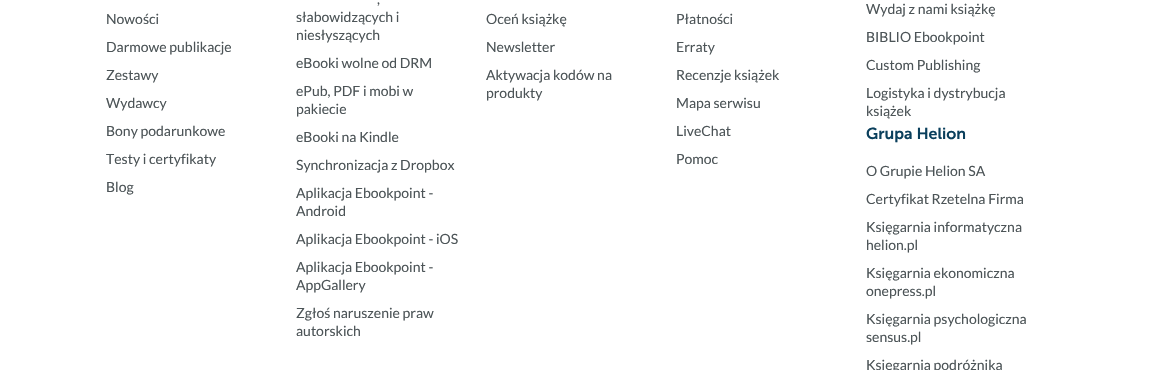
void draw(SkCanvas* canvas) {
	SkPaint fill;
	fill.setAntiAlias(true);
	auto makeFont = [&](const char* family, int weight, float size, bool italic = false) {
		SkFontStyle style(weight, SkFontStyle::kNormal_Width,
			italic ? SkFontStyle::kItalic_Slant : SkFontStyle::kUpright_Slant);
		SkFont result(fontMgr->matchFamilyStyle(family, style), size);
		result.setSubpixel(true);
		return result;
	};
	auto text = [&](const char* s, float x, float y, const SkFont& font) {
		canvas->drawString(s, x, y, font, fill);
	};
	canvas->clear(0xFFFFFFFF);
	auto font1 = makeFont("Lato", 400, 14);
	fill.setColor(0xFF4C5457);
	text("Nowości", 106, 24, font1);
	text("Darmowe publikacje", 106, 52, font1);
	text("Zestawy", 106, 80, font1);
	text("Wydawcy", 106, 108, font1);
	text("Bony podarunkowe", 106, 136, font1);
	text("Testy i certyfikaty", 106, 164, font1);
	text("Blog", 106, 192, font1);
	text(",", 377, 4, font1);
	text("słabowidzących i", 296, 22, font1);
	text("niesłyszących", 296, 40, font1);
	text("eBooki wolne od DRM", 296, 68, font1);
	text("ePub, PDF i mobi w", 296, 96, font1);
	text("pakiecie", 296, 114, font1);
	text("eBooki na Kindle", 296, 142, font1);
	text("Synchronizacja z Dropbox", 296, 170, font1);
	text("Aplikacja Ebookpoint -", 296, 198, font1);
	text("Android", 296, 216, font1);
	text("Aplikacja Ebookpoint - iOS", 296, 244, font1);
	text("Aplikacja Ebookpoint -", 296, 272, font1);
	text("AppGallery", 296, 290, font1);
	text("Zgłoś naruszenie praw", 296, 318, font1);
	text("autorskich", 296, 336, font1);
	text("Oceń książkę", 486, 24, font1);
	text("Newsletter", 486, 52, font1);
	text("Aktywacja kodów na", 486, 80, font1);
	text("produkty", 486, 98, font1);
	text("Płatności", 676, 24, font1);
	text("Erraty", 676, 52, font1);
	text("Recenzje książek", 676, 80, font1);
	text("Mapa serwisu", 676, 108, font1);
	text("LiveChat", 676, 136, font1);
	text("Pomoc", 676, 164, font1);
	text("Wydaj z nami książkę", 866, 14, font1);
	text("BIBLIO Ebookpoint", 866, 42, font1);
	text("Custom Publishing", 866, 70, font1);
	text("Logistyka i dystrybucja", 866, 98, font1);
	text("książek", 866, 116, font1);
	auto font2 = makeFont("Museo Sans", 600, 16);
	fill.setColor(0xFF0A3F5C);
	text("Grupa Helion", 866, 139, font2);
	fill.setColor(0xFF4C5457);
	text("O Grupie Helion SA", 866, 176, font1);
	text("Certyfikat Rzetelna Firma", 866, 204, font1);
	text("Księgarnia informatyczna", 866, 232, font1);
	text("helion.pl", 866, 250, font1);
	text("Księgarnia ekonomiczna", 866, 278, font1);
	text("onepress.pl", 866, 296, font1);
	text("Księgarnia psychologiczna", 866, 324, font1);
	text("sensus.pl", 866, 342, font1);
	text("Księgarnia podróżnika", 866, 370, font1);
}
